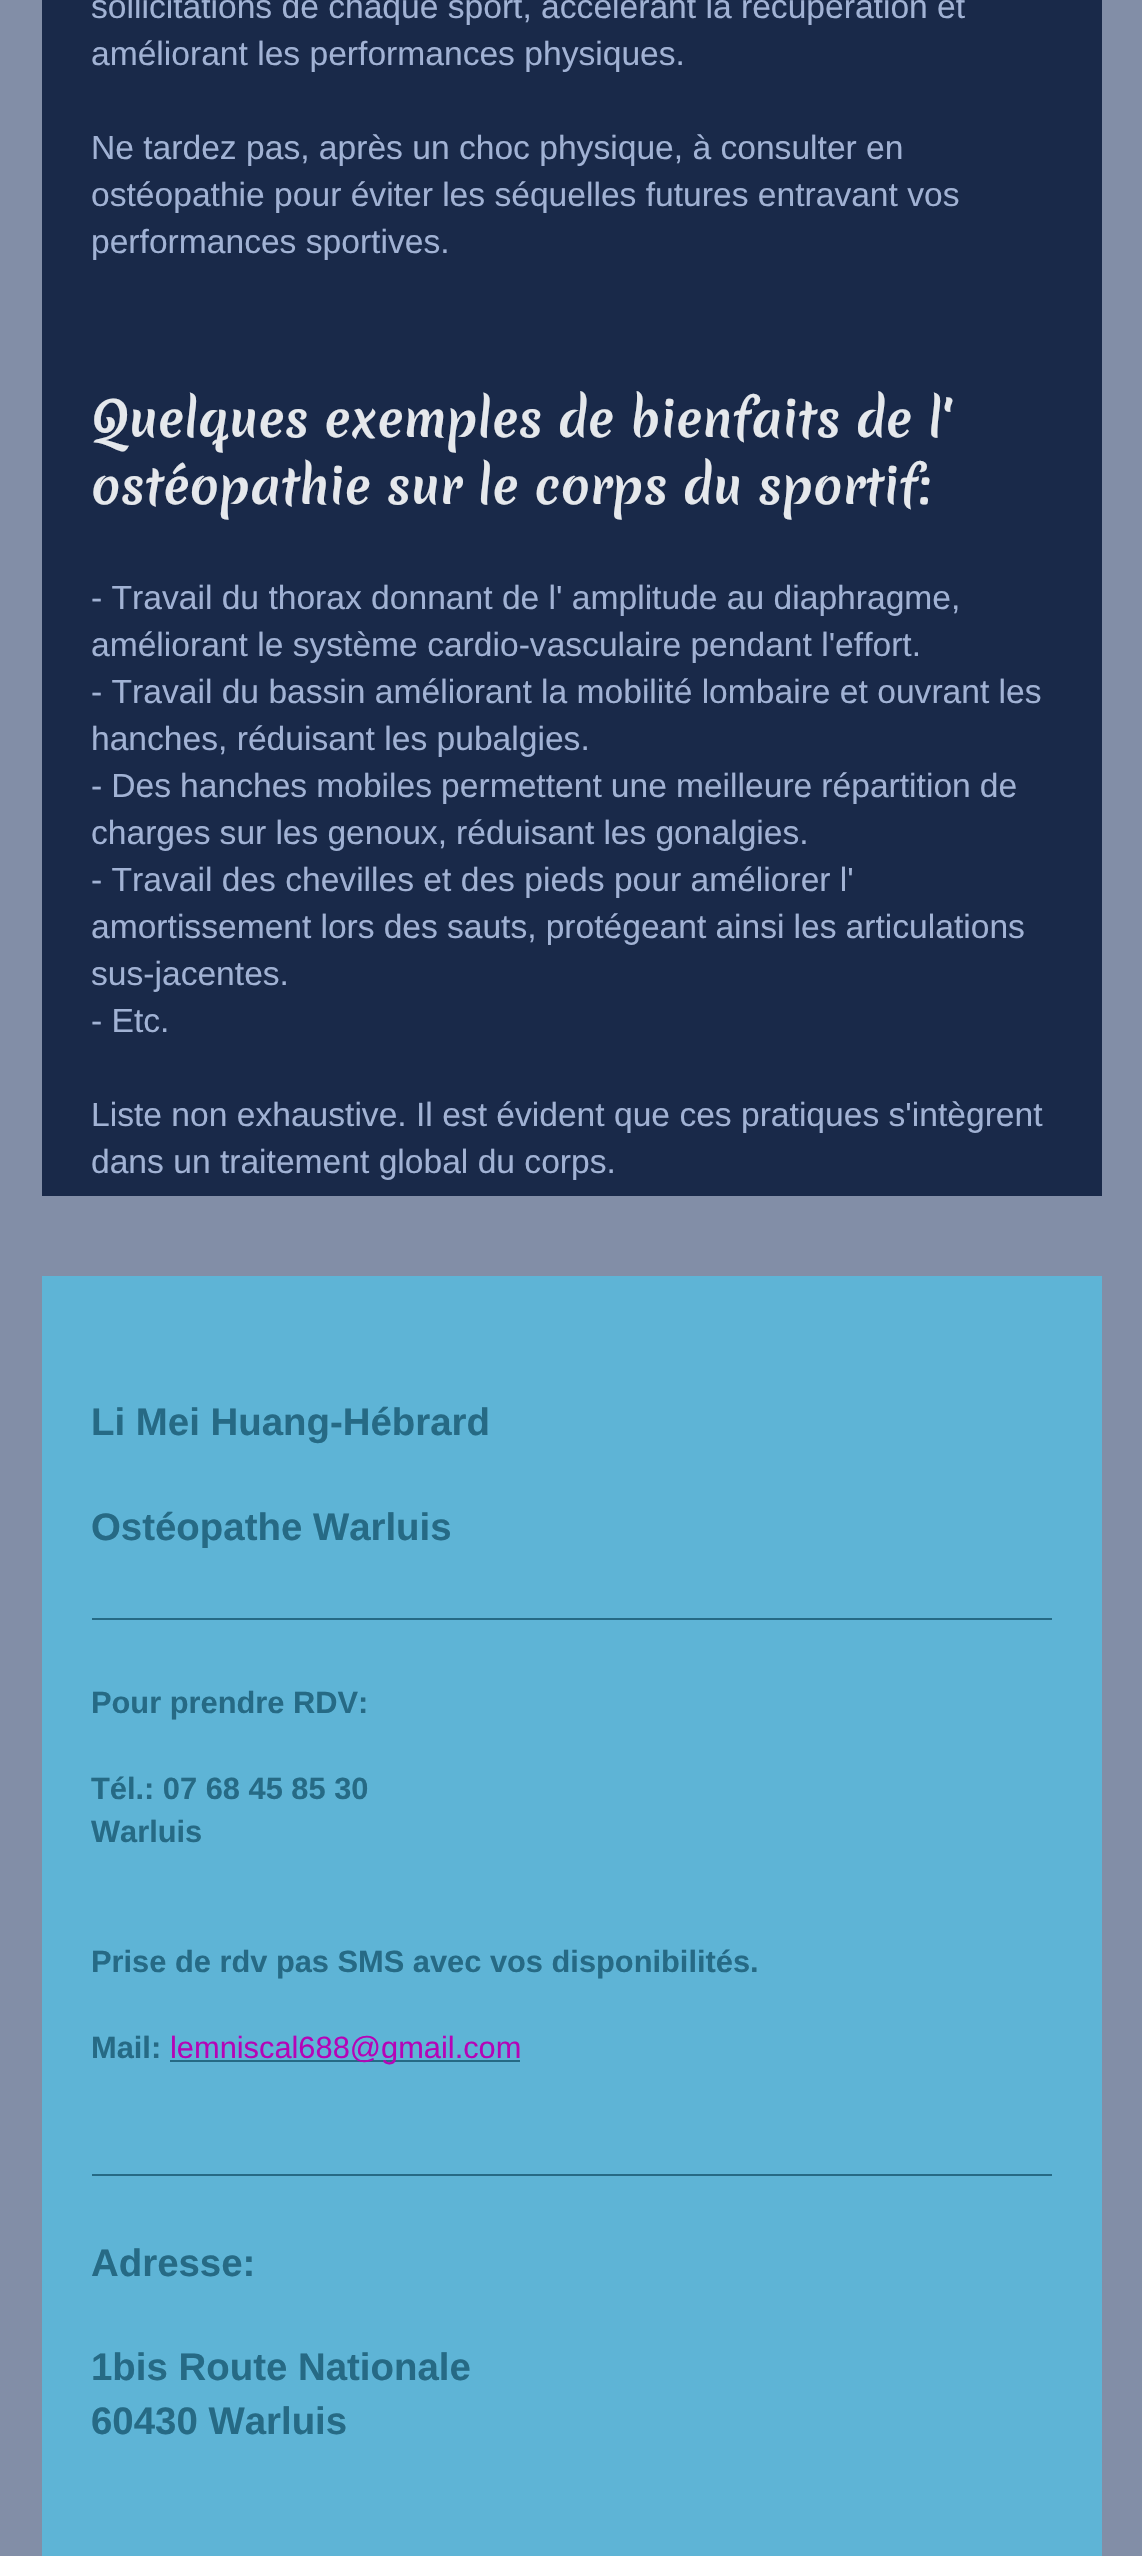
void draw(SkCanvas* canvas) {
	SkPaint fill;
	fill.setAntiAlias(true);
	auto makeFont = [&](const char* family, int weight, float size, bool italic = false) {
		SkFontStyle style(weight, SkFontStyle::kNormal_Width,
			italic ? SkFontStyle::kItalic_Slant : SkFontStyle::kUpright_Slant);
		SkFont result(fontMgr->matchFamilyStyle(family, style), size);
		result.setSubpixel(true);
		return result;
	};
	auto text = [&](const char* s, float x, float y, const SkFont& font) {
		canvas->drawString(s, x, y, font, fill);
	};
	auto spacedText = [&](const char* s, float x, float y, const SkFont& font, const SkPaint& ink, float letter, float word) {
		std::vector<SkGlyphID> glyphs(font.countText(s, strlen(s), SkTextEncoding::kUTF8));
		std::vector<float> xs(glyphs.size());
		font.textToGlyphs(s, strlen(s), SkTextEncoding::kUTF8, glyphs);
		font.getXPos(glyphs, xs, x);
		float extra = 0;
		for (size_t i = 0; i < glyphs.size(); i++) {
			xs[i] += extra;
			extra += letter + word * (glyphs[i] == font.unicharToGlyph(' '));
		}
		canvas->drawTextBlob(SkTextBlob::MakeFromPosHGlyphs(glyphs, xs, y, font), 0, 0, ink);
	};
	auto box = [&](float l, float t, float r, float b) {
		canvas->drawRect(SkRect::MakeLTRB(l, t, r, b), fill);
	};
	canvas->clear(0xFF828EA7);
	fill.setColor(0xFF192949);
	box(42, 0, 1102, 1196);
	fill.setColor(0xFF5EB4D6);
	box(42, 1276, 1102, 2556);
	fill.setColor(0xFF266A85);
	box(92, 1618, 1052, 1620);
	box(170, 2060, 520, 2062);
	box(92, 2174, 1052, 2176);
	auto font1 = makeFont("Liberation Sans", 400, 33.6f);
	fill.setColor(0xFFA1B2D4);
	text("sollicitations de chaque sport, accélérant la récupération et", 91, 18, font1);
	text("améliorant les performances physiques.", 91, 65, font1);
	text("Ne tardez pas, après un choc physique, à consulter en", 91, 159, font1);
	text("ostéopathie pour éviter les séquelles futures entravant vos", 91, 206, font1);
	text("performances sportives.", 91, 253, font1);
	auto font2 = makeFont("Merienda", 700, 48);
	fill.setColor(0xFFE5E8EC);
	text("Quelques exemples de bienfaits de l'", 91, 437, font2);
	text("ostéopathie sur le corps du sportif:", 91, 504, font2);
	fill.setColor(0xFFA1B2D4);
	text("- Travail du thorax donnant de l' amplitude au diaphragme,", 91, 609, font1);
	text("améliorant le système cardio-vasculaire pendant l'effort.", 91, 656, font1);
	text("- Travail du bassin améliorant la mobilité lombaire et ouvrant les", 91, 703, font1);
	text("hanches, réduisant les pubalgies.", 91, 750, font1);
	spacedText("- Des hanches mobiles permettent une meilleure répartition de", 91, 797, font1, fill, 0, -0.25f);
	spacedText("charges sur les genoux, réduisant les gonalgies.", 91, 844, font1, fill, 0, -0.25f);
	text("- Travail des chevilles et des pieds pour améliorer l'", 91, 891, font1);
	spacedText("amortissement lors des sauts, protégeant ainsi les articulations", 91, 938, font1, fill, 0, -0.25f);
	text("sus-jacentes.", 91, 985, font1);
	text("- Etc.", 91, 1032, font1);
	text("Liste non exhaustive. Il est évident que ces pratiques s'intègrent", 91, 1126, font1);
	text("dans un traitement global du corps.", 91, 1173, font1);
	auto font3 = makeFont("Liberation Sans", 700, 38.4f);
	fill.setColor(0xFF266A85);
	text("Li Mei Huang-Hébrard", 91, 1435, font3);
	text("Ostéopathe Warluis", 91, 1540, font3);
	auto font4 = makeFont("Liberation Sans", 700, 30.8f);
	text("Pour prendre RDV:", 91, 1713, font4);
	text("Tél.: 07 68 45 85 30", 91, 1799, font4);
	text("Warluis", 91, 1842, font4);
	text("Prise de rdv pas SMS avec vos disponibilités.", 91, 1972, font4);
	text("Mail:", 91, 2058, font4);
	auto font5 = makeFont("Liberation Sans", 400, 30.8f);
	fill.setColor(0xFFB504B7);
	text("lemniscal688@gmail.com", 170, 2058, font5);
	fill.setColor(0xFF266A85);
	text("Adresse:", 91, 2276, font3);
	text("1bis Route Nationale", 91, 2380, font3);
	text("60430 Warluis", 91, 2434, font3);
}
